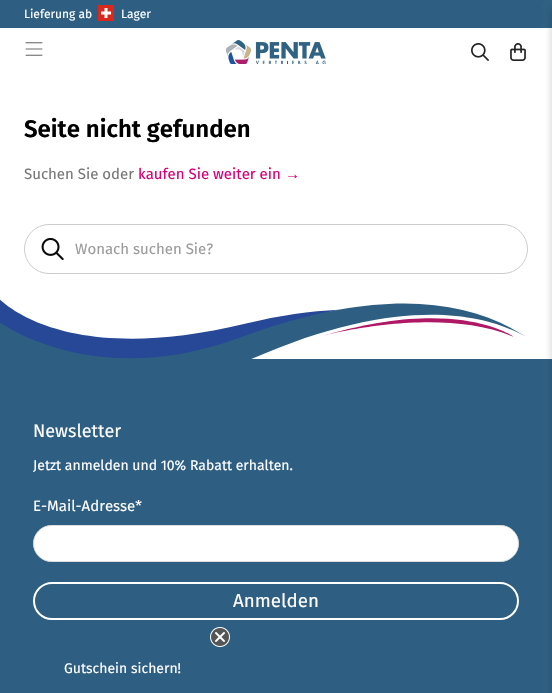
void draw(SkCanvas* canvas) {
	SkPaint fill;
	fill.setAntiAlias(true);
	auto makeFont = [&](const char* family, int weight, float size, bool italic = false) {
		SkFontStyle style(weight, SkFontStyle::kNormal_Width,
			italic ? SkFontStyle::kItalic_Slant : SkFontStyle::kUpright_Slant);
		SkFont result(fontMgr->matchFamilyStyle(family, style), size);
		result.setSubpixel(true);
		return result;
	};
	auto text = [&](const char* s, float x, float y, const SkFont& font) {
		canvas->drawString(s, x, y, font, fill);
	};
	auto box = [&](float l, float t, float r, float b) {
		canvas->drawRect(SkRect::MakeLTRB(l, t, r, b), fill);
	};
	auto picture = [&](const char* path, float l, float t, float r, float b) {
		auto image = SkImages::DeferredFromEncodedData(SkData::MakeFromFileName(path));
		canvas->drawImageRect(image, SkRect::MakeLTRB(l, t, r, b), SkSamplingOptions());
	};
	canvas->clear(0xFFFFFFFF);
	picture("image0.png", 25, 42, 43, 56);
	picture("image1.png", 226, 40, 326, 64);
	picture("image2.png", 471, 43, 489, 61);
	picture("image3.png", 510, 43, 526, 61);
	fill.setColor(0xFF2E5F82);
	box(0, 0, 552, 28);
	picture("image6.png", 0, 299, 552, 383);
	box(0, 383, 552, 693);
	fill.setColor(0x1A0A0A0A);
	fill.setMaskFilter(SkMaskFilter::MakeBlur(kNormal_SkBlurStyle, 4));
	canvas->drawRect(SkRect::MakeLTRB(552, 8, 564, 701), fill);
	fill.setMaskFilter(nullptr);
	picture("image4.png", 98, 5, 114, 21);
	fill.setMaskFilter(SkMaskFilter::MakeBlur(kNormal_SkBlurStyle, 4));
	canvas->drawRect(SkRect::MakeLTRB(552, 8, 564, 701), fill);
	fill.setMaskFilter(nullptr);
	fill.setStyle(SkPaint::kStroke_Style);
	fill.setStrokeWidth(1);
	fill.setColor(0xFFCCCCCC);
	canvas->drawRoundRect(SkRect::MakeLTRB(24.5f, 224.5f, 527.5f, 273.5f), 24.5f, 24.5f, fill);
	picture("image5.png", 41, 238, 64, 260);
	fill.setStyle(SkPaint::kFill_Style);
	fill.setColor(0xFFFFFFFF);
	canvas->drawRoundRect(SkRect::MakeLTRB(33.5f, 525.5f, 518.5f, 561.5f), 18, 18, fill);
	fill.setStyle(SkPaint::kStroke_Style);
	fill.setColor(0xFFDEDEDE);
	canvas->drawRoundRect(SkRect::MakeLTRB(33.5f, 525.5f, 518.5f, 561.5f), 18, 18, fill);
	fill.setStrokeWidth(2);
	fill.setColor(0xFFFFFFFF);
	canvas->drawRoundRect(SkRect::MakeLTRB(34, 583, 518, 619), 18, 18, fill);
	picture("image7.png", 210, 627, 230, 647);
	auto font1 = makeFont("Fira Sans", 400, 12);
	fill.setStyle(SkPaint::kFill_Style);
	text("Lieferung ab", 24, 18, font1);
	text("Lager", 121, 18, font1);
	auto font2 = makeFont("Fira Sans", 600, 24);
	fill.setColor(0xFF000000);
	text("Seite nicht gefunden", 24, 137, font2);
	auto font3 = makeFont("Fira Sans", 400, 15);
	fill.setColor(0xFF777777);
	text("Suchen Sie oder", 24, 179, font3);
	fill.setColor(0xFFD70078);
	text("kaufen Sie weiter ein", 138, 179, font3);
	auto font4 = makeFont("Liberation Sans", 400, 15);
	text("→", 285, 179, font4);
	fill.setColor(0xFF9B9B9B);
	text("Wonach suchen Sie?", 75, 254, font3);
	auto font5 = makeFont("Fira Sans", 400, 18);
	fill.setColor(0xFFFFFFFF);
	text("Newsletter", 33, 437, font5);
	auto font6 = makeFont("Fira Sans", 400, 14);
	text("Jetzt anmelden und 10% Rabatt erhalten.", 33, 470, font6);
	text("E-Mail-Adresse*", 33, 511, font3);
	auto font7 = makeFont("Fira Sans", 400, 18.75f);
	text("Anmelden", 233, 607, font7);
	text("Gutschein sichern!", 64, 673, font6);
}
